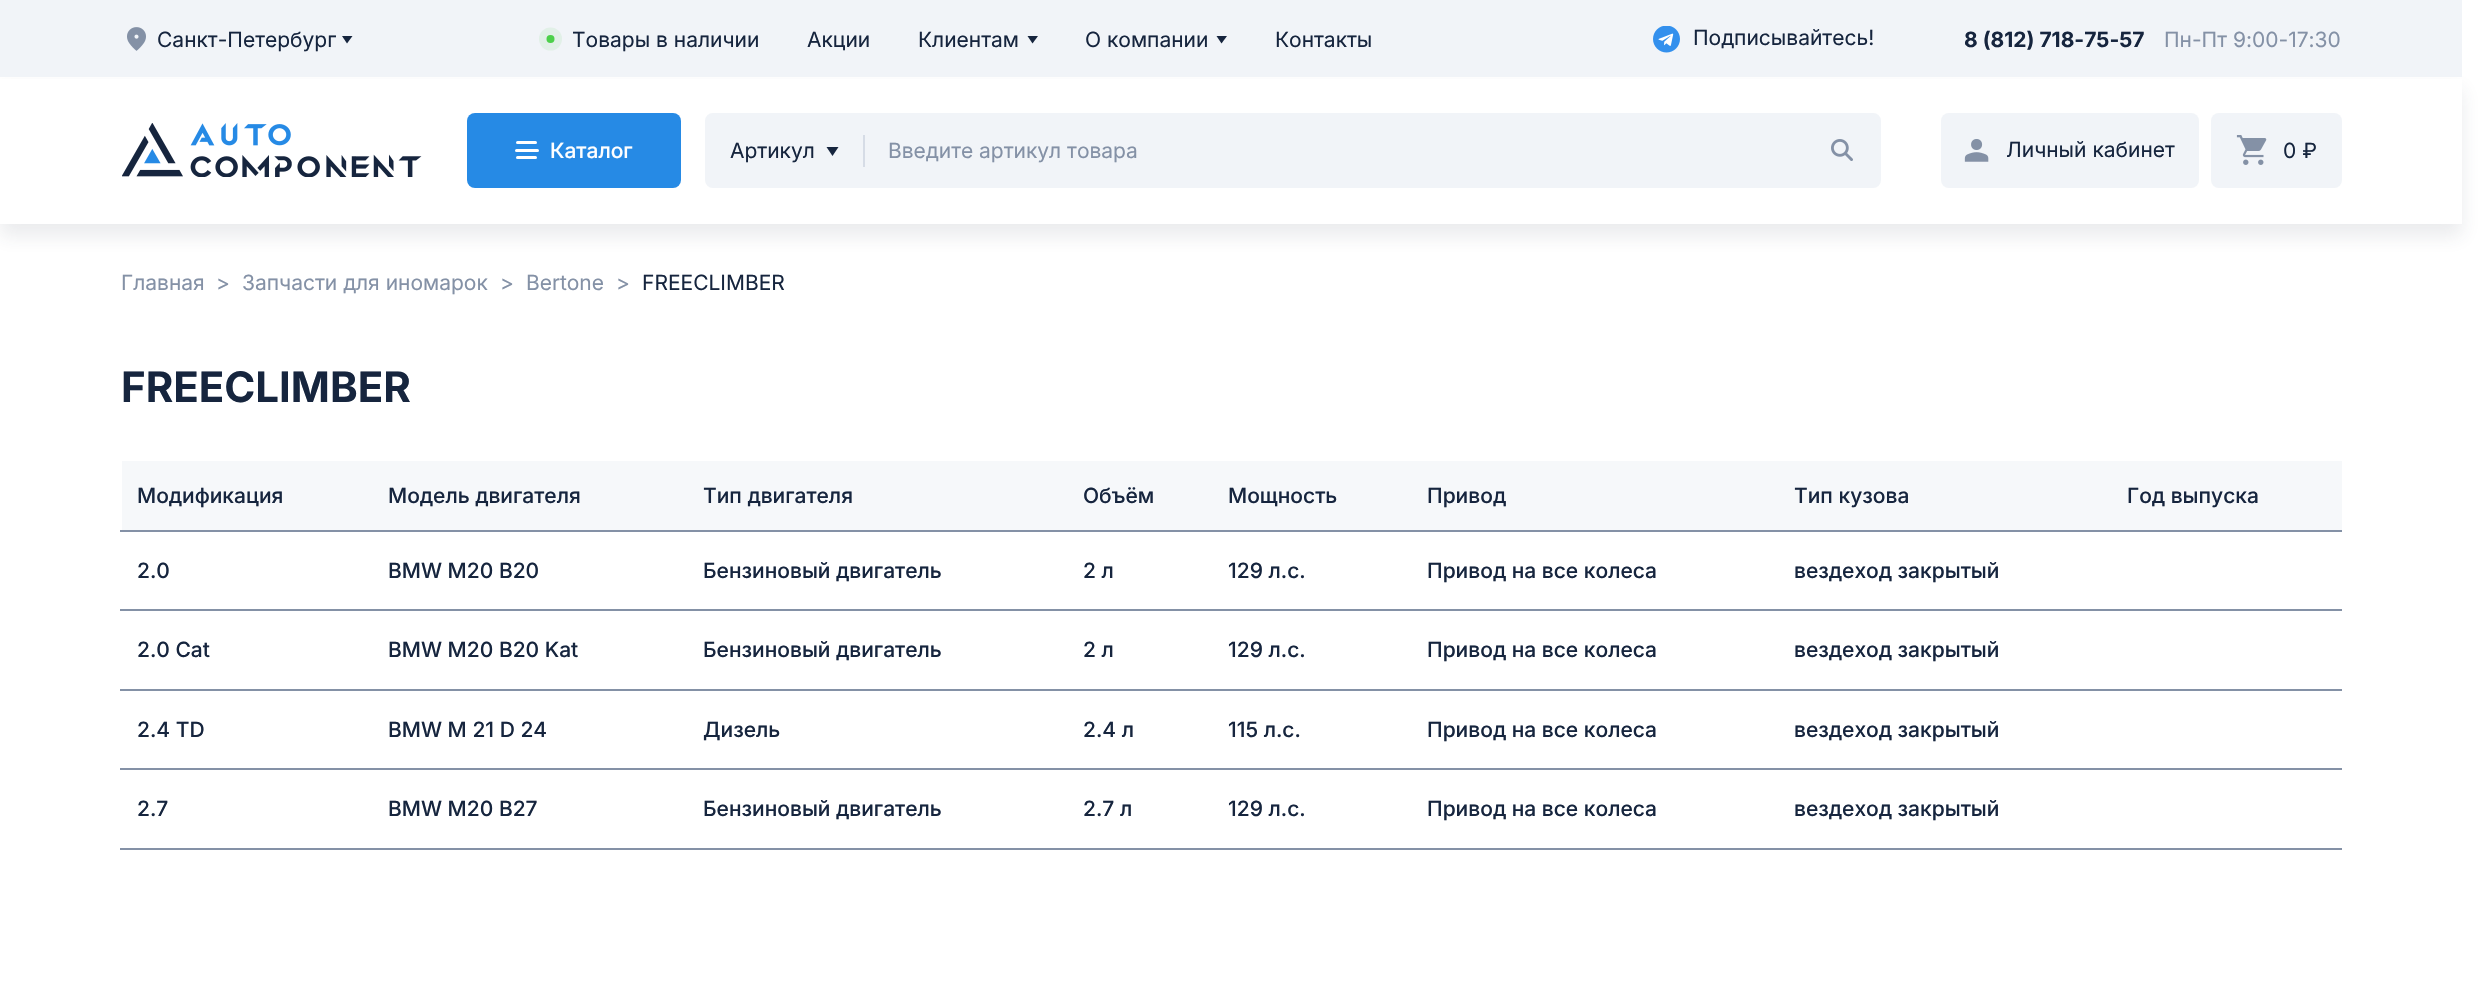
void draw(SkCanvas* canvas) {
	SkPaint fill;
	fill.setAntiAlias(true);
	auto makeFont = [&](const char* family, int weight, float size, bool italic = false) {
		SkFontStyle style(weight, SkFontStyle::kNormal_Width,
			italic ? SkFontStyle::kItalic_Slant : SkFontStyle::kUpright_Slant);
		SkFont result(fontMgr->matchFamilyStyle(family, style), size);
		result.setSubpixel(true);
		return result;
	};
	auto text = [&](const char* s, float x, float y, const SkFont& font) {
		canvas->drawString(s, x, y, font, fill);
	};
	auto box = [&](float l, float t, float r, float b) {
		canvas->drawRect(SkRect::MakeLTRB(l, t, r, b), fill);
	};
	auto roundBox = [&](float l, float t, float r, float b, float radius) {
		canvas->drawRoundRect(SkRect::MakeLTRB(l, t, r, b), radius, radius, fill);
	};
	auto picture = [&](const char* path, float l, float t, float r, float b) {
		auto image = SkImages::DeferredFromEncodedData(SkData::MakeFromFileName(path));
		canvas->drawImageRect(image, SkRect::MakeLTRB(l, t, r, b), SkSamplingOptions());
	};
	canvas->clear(0xFFFFFFFF);
	fill.setColor(0x1A303B4D);
	fill.setMaskFilter(SkMaskFilter::MakeBlur(kNormal_SkBlurStyle, 9));
	canvas->drawRect(SkRect::MakeLTRB(0, 89, 2462, 236), fill);
	fill.setMaskFilter(nullptr);
	fill.setColor(0xFFF1F4F8);
	box(0, 0, 2462, 77);
	picture("image0.png", 127, 27, 146, 51);
	fill.setColor(0xFF16253E);
	canvas->drawPath(SkPathBuilder().moveTo(347, 43.5f).lineTo(342, 36).lineTo(352.5f, 36).close().detach(), fill);
	fill.setColor(0xFFE1F0E7);
	canvas->drawCircle(550.5f, 39, 11.5f, fill);
	fill.setColor(0xFF4CD04A);
	canvas->drawCircle(550.5f, 39, 4, fill);
	fill.setColor(0xFF16253E);
	canvas->drawPath(SkPathBuilder().moveTo(1032.5f, 43.5f).lineTo(1027.5f, 36).lineTo(1038, 36).close().detach(), fill);
	canvas->drawPath(SkPathBuilder().moveTo(1221.5f, 43.5f).lineTo(1216.5f, 36).lineTo(1227, 36).close().detach(), fill);
	picture("image1.png", 1653, 26, 1680, 53);
	fill.setColor(0xFFFFFFFF);
	box(0, 79, 2462, 224);
	picture("image2.png", 122, 123, 422, 177);
	fill.setColor(0xFF268AE5);
	roundBox(467, 113, 681, 188, 8);
	fill.setColor(0xFFFFFFFF);
	roundBox(516, 141, 537, 144, 1.5f);
	roundBox(515, 149, 539, 152, 1.5f);
	roundBox(516, 156, 537, 159, 1.5f);
	fill.setColor(0xFFF1F4F8);
	canvas->drawRoundRect(SkRect::MakeLTRB(706, 114, 1880, 187), 7, 7, fill);
	fill.setStyle(SkPaint::kStroke_Style);
	fill.setStrokeWidth(2);
	canvas->drawRoundRect(SkRect::MakeLTRB(706, 114, 1880, 187), 7, 7, fill);
	fill.setStyle(SkPaint::kFill_Style);
	fill.setColor(0xFFD6DCE6);
	box(863, 135, 865, 167);
	fill.setColor(0xFF16253E);
	canvas->drawPath(SkPathBuilder().moveTo(832.5f, 156).lineTo(826.5f, 147).lineTo(838.5f, 147).close().detach(), fill);
	picture("image3.png", 1831, 139, 1853, 161);
	fill.setColor(0xFFF1F4F8);
	roundBox(1941, 113, 2199, 188, 8);
	picture("image4.png", 1964, 139, 1989, 162);
	roundBox(2211, 113, 2342, 188, 8);
	picture("image5.png", 2236, 135, 2267, 165);
	fill.setColor(0xFFF6F8FA);
	box(122, 461, 2342, 530);
	fill.setColor(0xFF8491A6);
	box(120, 530, 2342, 532);
	box(120, 609, 2342, 611);
	box(120, 689, 2342, 691);
	box(120, 768, 2342, 770);
	box(120, 848, 2342, 850);
	auto font1 = makeFont("Inter", 400, 21);
	fill.setColor(0xFF16253E);
	text("Санкт-Петербург", 157, 47, font1);
	text("Товары в наличии", 572, 47, font1);
	text("Акции", 807, 47, font1);
	text("Клиентам", 918, 47, font1);
	text("О компании", 1085, 47, font1);
	text("Контакты", 1275, 47, font1);
	text("Подписывайтесь!", 1693, 45, font1);
	auto font2 = makeFont("Inter", 700, 21);
	text("8 (812) 718-75-57", 1964, 47, font2);
	fill.setColor(0xFF8491A6);
	text("Пн-Пт 9:00-17:30", 2164, 47, font1);
	auto font3 = makeFont("Inter", 500, 21);
	fill.setColor(0xFFFFFFFF);
	text("Каталог", 550, 158, font3);
	fill.setColor(0xFF16253E);
	text("Артикул", 730, 158, font1);
	fill.setColor(0xFF8491A6);
	text("Введите артикул товара", 888, 158, font1);
	fill.setColor(0xFF16253E);
	text("Личный кабинет", 2006, 157, font1);
	text("0 ₽", 2283, 158, font1);
	fill.setColor(0xFF8491A6);
	text("Главная", 121, 290, font1);
	text(">", 216, 290, font1);
	text("Запчасти для иномарок", 242, 290, font1);
	text(">", 500, 290, font1);
	text("Bertone", 526, 290, font1);
	text(">", 616, 290, font1);
	fill.setColor(0xFF16253E);
	text("FREECLIMBER", 642, 290, font1);
	auto font4 = makeFont("Inter", 700, 42);
	text("FREECLIMBER", 121, 402, font4);
	text("Модификация", 137, 503, font3);
	text("Модель двигателя", 388, 503, font3);
	text("Тип двигателя", 703, 503, font3);
	text("Объём", 1083, 503, font3);
	text("Мощность", 1228, 503, font3);
	text("Привод", 1427, 503, font3);
	text("Тип кузова", 1794, 503, font3);
	text("Год выпуска", 2127, 503, font3);
	text("2.0", 137, 578, font3);
	text("BMW M20 B20", 388, 578, font3);
	text("Бензиновый двигатель", 703, 578, font3);
	text("2 л", 1083, 578, font3);
	text("129 л.с.", 1228, 578, font3);
	text("Привод на все колеса", 1427, 578, font3);
	text("вездеход закрытый", 1794, 578, font3);
	text("2.0 Cat", 137, 657, font3);
	text("BMW M20 B20 Kat", 388, 657, font3);
	text("Бензиновый двигатель", 703, 657, font3);
	text("2 л", 1083, 657, font3);
	text("129 л.с.", 1228, 657, font3);
	text("Привод на все колеса", 1427, 657, font3);
	text("вездеход закрытый", 1794, 657, font3);
	text("2.4 TD", 137, 737, font3);
	text("BMW M 21 D 24", 388, 737, font3);
	text("Дизель", 703, 737, font3);
	text("2.4 л", 1083, 737, font3);
	text("115 л.с.", 1228, 737, font3);
	text("Привод на все колеса", 1427, 737, font3);
	text("вездеход закрытый", 1794, 737, font3);
	text("2.7", 137, 816, font3);
	text("BMW M20 B27", 388, 816, font3);
	text("Бензиновый двигатель", 703, 816, font3);
	text("2.7 л", 1083, 816, font3);
	text("129 л.с.", 1228, 816, font3);
	text("Привод на все колеса", 1427, 816, font3);
	text("вездеход закрытый", 1794, 816, font3);
}
